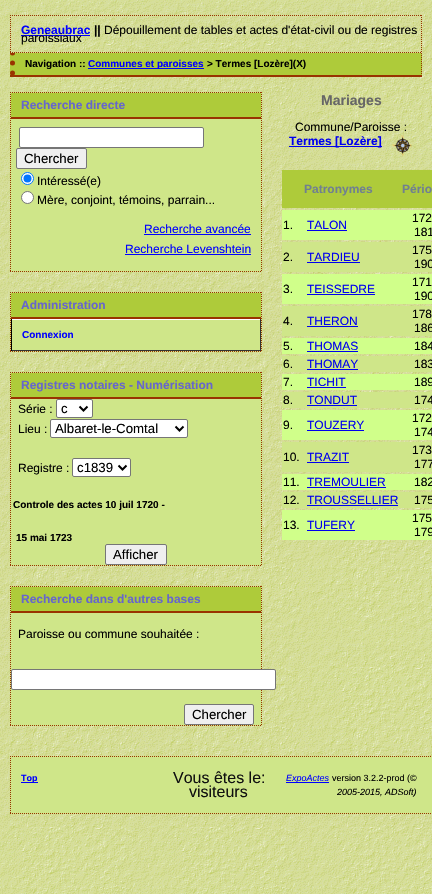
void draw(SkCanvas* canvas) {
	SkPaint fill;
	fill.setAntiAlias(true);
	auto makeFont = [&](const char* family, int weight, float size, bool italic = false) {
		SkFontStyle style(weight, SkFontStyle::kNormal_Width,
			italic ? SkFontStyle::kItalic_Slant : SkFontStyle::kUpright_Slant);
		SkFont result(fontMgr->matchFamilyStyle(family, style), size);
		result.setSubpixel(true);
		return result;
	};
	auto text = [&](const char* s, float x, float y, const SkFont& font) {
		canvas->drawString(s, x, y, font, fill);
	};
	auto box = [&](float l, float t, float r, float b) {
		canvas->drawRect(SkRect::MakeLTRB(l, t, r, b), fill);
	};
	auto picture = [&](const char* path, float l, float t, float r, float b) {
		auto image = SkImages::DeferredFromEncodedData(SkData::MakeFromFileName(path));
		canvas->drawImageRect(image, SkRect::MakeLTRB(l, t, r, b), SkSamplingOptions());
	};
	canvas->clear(0xFFFFFFFF);
	picture("image0.png", 0, 0, 432, 894);
	fill.setColor(0xFFAECB3A);
	box(10, 53, 422, 75);
	fill.setStyle(SkPaint::kStroke_Style);
	fill.setStrokeWidth(1);
	fill.setColor(0xFF993300);
	fill.setPathEffect(SkDashPathEffect::Make({{1, 1}}, 0));
	canvas->drawPath(SkPathBuilder().moveTo(421.5f, 53).lineTo(421.5f, 77).detach(), fill);
	fill.setPathEffect(nullptr);
	fill.setStyle(SkPaint::kFill_Style);
	box(10, 75, 422, 77);
	fill.setStyle(SkPaint::kStroke_Style);
	fill.setStrokeWidth(5);
	fill.setStrokeCap(SkPaint::kRound_Cap);
	fill.setPathEffect(SkDashPathEffect::Make({{0, 10}}, 0));
	canvas->drawPath(SkPathBuilder().moveTo(12.5f, 53).lineTo(12.5f, 77).detach(), fill);
	fill.setPathEffect(nullptr);
	picture("image1.png", 10, 15, 422, 53);
	fill.setStrokeWidth(1);
	fill.setStrokeCap(SkPaint::kButt_Cap);
	fill.setPathEffect(SkDashPathEffect::Make({{1, 1}}, 0));
	canvas->drawPath(SkPathBuilder().moveTo(10, 15.5f).lineTo(422, 15.5f).detach(), fill);
	fill.setPathEffect(nullptr);
	fill.setPathEffect(SkDashPathEffect::Make({{1, 1}}, 0));
	canvas->drawPath(SkPathBuilder().moveTo(421.5f, 15).lineTo(421.5f, 53).detach(), fill);
	fill.setPathEffect(nullptr);
	fill.setPathEffect(SkDashPathEffect::Make({{1, 1}}, 0));
	canvas->drawPath(SkPathBuilder().moveTo(10, 52.5f).lineTo(422, 52.5f).detach(), fill);
	fill.setPathEffect(nullptr);
	fill.setPathEffect(SkDashPathEffect::Make({{1, 1}}, 0));
	canvas->drawPath(SkPathBuilder().moveTo(10.5f, 15).lineTo(10.5f, 53).detach(), fill);
	fill.setPathEffect(nullptr);
	fill.setStyle(SkPaint::kFill_Style);
	fill.setColor(0xFF0000FF);
	box(21, 35, 90, 36);
	box(88, 68, 204, 69);
	fill.setColor(0xFFCFE689);
	box(10, 92, 262, 272);
	fill.setStyle(SkPaint::kStroke_Style);
	fill.setColor(0xFF993300);
	fill.setPathEffect(SkDashPathEffect::Make({{1, 1}}, 0));
	canvas->drawPath(SkPathBuilder().moveTo(10, 92.5f).lineTo(262, 92.5f).detach(), fill);
	fill.setPathEffect(nullptr);
	fill.setPathEffect(SkDashPathEffect::Make({{1, 1}}, 0));
	canvas->drawPath(SkPathBuilder().moveTo(261.5f, 92).lineTo(261.5f, 272).detach(), fill);
	fill.setPathEffect(nullptr);
	fill.setPathEffect(SkDashPathEffect::Make({{1, 1}}, 0));
	canvas->drawPath(SkPathBuilder().moveTo(10, 271.5f).lineTo(262, 271.5f).detach(), fill);
	fill.setPathEffect(nullptr);
	fill.setPathEffect(SkDashPathEffect::Make({{1, 1}}, 0));
	canvas->drawPath(SkPathBuilder().moveTo(10.5f, 92).lineTo(10.5f, 272).detach(), fill);
	fill.setPathEffect(nullptr);
	fill.setStyle(SkPaint::kFill_Style);
	fill.setColor(0xFFAECB3A);
	box(11, 93, 261, 117);
	fill.setColor(0xFF993300);
	box(11, 117, 261, 119);
	fill.setColor(0xFFFFFFFF);
	canvas->drawRoundRect(SkRect::MakeLTRB(19.5f, 127.5f, 203.5f, 147.5f), 1.5f, 1.5f, fill);
	fill.setStyle(SkPaint::kStroke_Style);
	fill.setColor(0xFF767676);
	canvas->drawRoundRect(SkRect::MakeLTRB(19.5f, 127.5f, 203.5f, 147.5f), 1.5f, 1.5f, fill);
	fill.setStyle(SkPaint::kFill_Style);
	fill.setColor(0xFFEFEFEF);
	canvas->drawRoundRect(SkRect::MakeLTRB(16.5f, 148.5f, 86.5f, 168.5f), 1.5f, 1.5f, fill);
	fill.setStyle(SkPaint::kStroke_Style);
	fill.setColor(0xFF767676);
	canvas->drawRoundRect(SkRect::MakeLTRB(16.5f, 148.5f, 86.5f, 168.5f), 1.5f, 1.5f, fill);
	fill.setStyle(SkPaint::kFill_Style);
	fill.setColor(0xFFFFFFFF);
	canvas->drawCircle(27.5f, 178.5f, 6, fill);
	fill.setStyle(SkPaint::kStroke_Style);
	fill.setColor(0xFF0075FF);
	canvas->drawCircle(27.5f, 178.5f, 6, fill);
	fill.setStyle(SkPaint::kFill_Style);
	canvas->drawCircle(27.5f, 178.5f, 4, fill);
	fill.setColor(0xFFFFFFFF);
	canvas->drawCircle(27.5f, 197.5f, 6, fill);
	fill.setStyle(SkPaint::kStroke_Style);
	fill.setColor(0xFF767676);
	canvas->drawCircle(27.5f, 197.5f, 6, fill);
	fill.setStyle(SkPaint::kFill_Style);
	fill.setColor(0xFF0000FF);
	box(144, 234, 251, 235);
	box(125, 254, 251, 255);
	fill.setColor(0xFFCFE689);
	box(10, 292, 262, 352);
	fill.setStyle(SkPaint::kStroke_Style);
	fill.setColor(0xFF993300);
	fill.setPathEffect(SkDashPathEffect::Make({{1, 1}}, 0));
	canvas->drawPath(SkPathBuilder().moveTo(10, 292.5f).lineTo(262, 292.5f).detach(), fill);
	fill.setPathEffect(nullptr);
	fill.setPathEffect(SkDashPathEffect::Make({{1, 1}}, 0));
	canvas->drawPath(SkPathBuilder().moveTo(261.5f, 292).lineTo(261.5f, 352).detach(), fill);
	fill.setPathEffect(nullptr);
	fill.setPathEffect(SkDashPathEffect::Make({{1, 1}}, 0));
	canvas->drawPath(SkPathBuilder().moveTo(10, 351.5f).lineTo(262, 351.5f).detach(), fill);
	fill.setPathEffect(nullptr);
	fill.setPathEffect(SkDashPathEffect::Make({{1, 1}}, 0));
	canvas->drawPath(SkPathBuilder().moveTo(10.5f, 292).lineTo(10.5f, 352).detach(), fill);
	fill.setPathEffect(nullptr);
	fill.setStyle(SkPaint::kFill_Style);
	fill.setColor(0xFFAECB3A);
	box(11, 293, 261, 317);
	fill.setColor(0xFF993300);
	box(11, 317, 261, 319);
	fill.setColor(0xFFFFFFFF);
	box(11, 319, 261, 320);
	fill.setColor(0xFF333333);
	box(260, 319, 261, 351);
	box(11, 350, 261, 351);
	fill.setColor(0xFF000000);
	box(11, 319, 12, 351);
	fill.setColor(0xFFCFE689);
	box(10, 372, 262, 566);
	fill.setStyle(SkPaint::kStroke_Style);
	fill.setColor(0xFF993300);
	fill.setPathEffect(SkDashPathEffect::Make({{1, 1}}, 0));
	canvas->drawPath(SkPathBuilder().moveTo(10, 372.5f).lineTo(262, 372.5f).detach(), fill);
	fill.setPathEffect(nullptr);
	fill.setPathEffect(SkDashPathEffect::Make({{1, 1}}, 0));
	canvas->drawPath(SkPathBuilder().moveTo(261.5f, 372).lineTo(261.5f, 566).detach(), fill);
	fill.setPathEffect(nullptr);
	fill.setPathEffect(SkDashPathEffect::Make({{1, 1}}, 0));
	canvas->drawPath(SkPathBuilder().moveTo(10, 565.5f).lineTo(262, 565.5f).detach(), fill);
	fill.setPathEffect(nullptr);
	fill.setPathEffect(SkDashPathEffect::Make({{1, 1}}, 0));
	canvas->drawPath(SkPathBuilder().moveTo(10.5f, 372).lineTo(10.5f, 566).detach(), fill);
	fill.setPathEffect(nullptr);
	fill.setStyle(SkPaint::kFill_Style);
	fill.setColor(0xFFAECB3A);
	box(11, 373, 261, 397);
	fill.setColor(0xFF993300);
	box(11, 397, 261, 399);
	fill.setColor(0xFFFFFFFF);
	canvas->drawRoundRect(SkRect::MakeLTRB(56.5f, 399.5f, 92.5f, 417.5f), 1.5f, 1.5f, fill);
	fill.setStyle(SkPaint::kStroke_Style);
	fill.setColor(0xFF767676);
	canvas->drawRoundRect(SkRect::MakeLTRB(56.5f, 399.5f, 92.5f, 417.5f), 1.5f, 1.5f, fill);
	fill.setStrokeWidth(2);
	fill.setColor(0xFF000000);
	canvas->drawPath(SkPathBuilder().moveTo(79.5f, 406.5f).lineTo(83.5f, 410.5f).lineTo(87.5f, 406.5f).detach(), fill);
	fill.setStyle(SkPaint::kFill_Style);
	fill.setColor(0xFFFFFFFF);
	canvas->drawRoundRect(SkRect::MakeLTRB(50.5f, 419.5f, 187.5f, 437.5f), 1.5f, 1.5f, fill);
	fill.setStyle(SkPaint::kStroke_Style);
	fill.setStrokeWidth(1);
	fill.setColor(0xFF767676);
	canvas->drawRoundRect(SkRect::MakeLTRB(50.5f, 419.5f, 187.5f, 437.5f), 1.5f, 1.5f, fill);
	fill.setStrokeWidth(2);
	fill.setColor(0xFF000000);
	canvas->drawPath(SkPathBuilder().moveTo(175.5f, 426.5f).lineTo(179.5f, 430.5f).lineTo(183.5f, 426.5f).detach(), fill);
	fill.setStyle(SkPaint::kFill_Style);
	fill.setColor(0xFFFFFFFF);
	canvas->drawRoundRect(SkRect::MakeLTRB(72.5f, 458.5f, 130.5f, 476.5f), 1.5f, 1.5f, fill);
	fill.setStyle(SkPaint::kStroke_Style);
	fill.setStrokeWidth(1);
	fill.setColor(0xFF767676);
	canvas->drawRoundRect(SkRect::MakeLTRB(72.5f, 458.5f, 130.5f, 476.5f), 1.5f, 1.5f, fill);
	fill.setStrokeWidth(2);
	fill.setColor(0xFF000000);
	canvas->drawPath(SkPathBuilder().moveTo(118.5f, 465.5f).lineTo(122.5f, 469.5f).lineTo(126.5f, 465.5f).detach(), fill);
	fill.setStyle(SkPaint::kFill_Style);
	fill.setColor(0xFFEFEFEF);
	canvas->drawRoundRect(SkRect::MakeLTRB(105.5f, 544.5f, 166.5f, 564.5f), 1.5f, 1.5f, fill);
	fill.setStyle(SkPaint::kStroke_Style);
	fill.setStrokeWidth(1);
	fill.setColor(0xFF767676);
	canvas->drawRoundRect(SkRect::MakeLTRB(105.5f, 544.5f, 166.5f, 564.5f), 1.5f, 1.5f, fill);
	fill.setStyle(SkPaint::kFill_Style);
	fill.setColor(0xFFCFE689);
	box(10, 586, 262, 726);
	fill.setStyle(SkPaint::kStroke_Style);
	fill.setColor(0xFF993300);
	fill.setPathEffect(SkDashPathEffect::Make({{1, 1}}, 0));
	canvas->drawPath(SkPathBuilder().moveTo(10, 586.5f).lineTo(262, 586.5f).detach(), fill);
	fill.setPathEffect(nullptr);
	fill.setPathEffect(SkDashPathEffect::Make({{1, 1}}, 0));
	canvas->drawPath(SkPathBuilder().moveTo(261.5f, 586).lineTo(261.5f, 726).detach(), fill);
	fill.setPathEffect(nullptr);
	fill.setPathEffect(SkDashPathEffect::Make({{1, 1}}, 0));
	canvas->drawPath(SkPathBuilder().moveTo(10, 725.5f).lineTo(262, 725.5f).detach(), fill);
	fill.setPathEffect(nullptr);
	fill.setPathEffect(SkDashPathEffect::Make({{1, 1}}, 0));
	canvas->drawPath(SkPathBuilder().moveTo(10.5f, 586).lineTo(10.5f, 726).detach(), fill);
	fill.setPathEffect(nullptr);
	fill.setStyle(SkPaint::kFill_Style);
	fill.setColor(0xFFAECB3A);
	box(11, 587, 261, 611);
	fill.setColor(0xFF993300);
	box(11, 611, 261, 613);
	fill.setColor(0xFFFFFFFF);
	canvas->drawRoundRect(SkRect::MakeLTRB(11.5f, 669.5f, 275.5f, 689.5f), 1.5f, 1.5f, fill);
	fill.setStyle(SkPaint::kStroke_Style);
	fill.setColor(0xFF767676);
	canvas->drawRoundRect(SkRect::MakeLTRB(11.5f, 669.5f, 275.5f, 689.5f), 1.5f, 1.5f, fill);
	fill.setStyle(SkPaint::kFill_Style);
	fill.setColor(0xFFEFEFEF);
	canvas->drawRoundRect(SkRect::MakeLTRB(184.5f, 704.5f, 253.5f, 724.5f), 1.5f, 1.5f, fill);
	fill.setStyle(SkPaint::kStroke_Style);
	fill.setColor(0xFF767676);
	canvas->drawRoundRect(SkRect::MakeLTRB(184.5f, 704.5f, 253.5f, 724.5f), 1.5f, 1.5f, fill);
	fill.setStyle(SkPaint::kFill_Style);
	fill.setColor(0xFF0000EE);
	box(289, 146, 382, 147);
	picture("image2.png", 392, 135, 412, 156);
	fill.setColor(0xFFAECB3A);
	box(282, 170, 432, 208);
	fill.setColor(0xFFD0FF8A);
	box(282, 210, 432, 240);
	fill.setColor(0xFF0000EE);
	box(307, 230, 347, 231);
	fill.setColor(0xFFCFE689);
	box(282, 242, 432, 272);
	fill.setColor(0xFF0000EE);
	box(307, 262, 360, 263);
	fill.setColor(0xFFD0FF8A);
	box(282, 274, 432, 304);
	fill.setColor(0xFF0000EE);
	box(307, 294, 375, 295);
	fill.setColor(0xFFCFE689);
	box(282, 306, 432, 336);
	fill.setColor(0xFF0000EE);
	box(307, 326, 358, 327);
	fill.setColor(0xFFD0FF8A);
	box(282, 338, 432, 354);
	fill.setColor(0xFF0000EE);
	box(307, 351, 358, 352);
	fill.setColor(0xFFCFE689);
	box(282, 356, 432, 372);
	fill.setColor(0xFF0000EE);
	box(307, 369, 358, 370);
	fill.setColor(0xFFD0FF8A);
	box(282, 374, 432, 390);
	fill.setColor(0xFF0000EE);
	box(307, 387, 346, 388);
	fill.setColor(0xFFCFE689);
	box(282, 392, 432, 408);
	fill.setColor(0xFF0000EE);
	box(307, 405, 357, 406);
	fill.setColor(0xFFD0FF8A);
	box(282, 410, 432, 440);
	fill.setColor(0xFF0000EE);
	box(307, 430, 364, 431);
	fill.setColor(0xFFCFE689);
	box(282, 442, 432, 472);
	fill.setColor(0xFF0000EE);
	box(307, 462, 349, 463);
	fill.setColor(0xFFD0FF8A);
	box(282, 474, 432, 490);
	fill.setColor(0xFF0000EE);
	box(307, 487, 386, 488);
	fill.setColor(0xFFCFE689);
	box(282, 492, 432, 508);
	fill.setColor(0xFF0000EE);
	box(307, 505, 398, 506);
	fill.setColor(0xFFD0FF8A);
	box(282, 510, 432, 540);
	fill.setColor(0xFF0000EE);
	box(307, 530, 355, 531);
	fill.setColor(0xFFCFE689);
	box(10, 756, 432, 814);
	fill.setStyle(SkPaint::kStroke_Style);
	fill.setColor(0xFF993300);
	fill.setPathEffect(SkDashPathEffect::Make({{1, 1}}, 0));
	canvas->drawPath(SkPathBuilder().moveTo(10, 756.5f).lineTo(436, 756.5f).detach(), fill);
	fill.setPathEffect(nullptr);
	fill.setPathEffect(SkDashPathEffect::Make({{1, 1}}, 0));
	canvas->drawPath(SkPathBuilder().moveTo(10, 813.5f).lineTo(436, 813.5f).detach(), fill);
	fill.setPathEffect(nullptr);
	fill.setPathEffect(SkDashPathEffect::Make({{1, 1}}, 0));
	canvas->drawPath(SkPathBuilder().moveTo(10.5f, 756).lineTo(10.5f, 814).detach(), fill);
	fill.setPathEffect(nullptr);
	fill.setStyle(SkPaint::kFill_Style);
	fill.setColor(0xFF0000FF);
	box(21, 782, 38, 783);
	box(286, 782, 329, 783);
	auto font1 = makeFont("Liberation Sans", 700, 12);
	text("Geneaubrac", 21, 34, font1);
	fill.setColor(0xFF000000);
	text("||", 94, 34, font1);
	auto font2 = makeFont("Liberation Sans", 400, 12);
	text("Dépouillement de tables et actes d'état-civil ou de registres", 104, 34, font2);
	text("paroissiaux", 21, 42, font2);
	auto font3 = makeFont("Liberation Sans", 700, 10);
	text("Navigation ::", 25, 67, font3);
	fill.setColor(0xFF0000FF);
	text("Communes et paroisses", 88, 67, font3);
	fill.setColor(0xFF000000);
	text("> Termes [Lozère](X)", 207, 67, font3);
	fill.setColor(0xFF6666CC);
	text("Recherche directe", 21, 109, font1);
	auto font4 = makeFont("Liberation Sans", 400, 13.25f);
	fill.setColor(0xFF000000);
	text("Chercher", 24, 163, font4);
	text("Intéressé(e)", 37, 185, font2);
	text("Mère, conjoint, témoins, parrain...", 37, 204, font2);
	fill.setColor(0xFF0000FF);
	text("Recherche avancée", 144, 233, font2);
	text("Recherche Levenshtein", 125, 253, font2);
	fill.setColor(0xFF6666CC);
	text("Administration", 21, 309, font1);
	fill.setColor(0xFF0000FF);
	text("Connexion", 22, 338, font3);
	fill.setColor(0xFF6666CC);
	text("Registres notaires - Numérisation", 21, 389, font1);
	fill.setColor(0xFF000000);
	text("Série :", 18, 413, font2);
	text("c", 61, 413, font4);
	text("Lieu :", 18, 433, font2);
	text("Albaret-le-Comtal", 55, 433, font4);
	text("Registre :", 18, 472, font2);
	text("c1839", 77, 472, font4);
	text("Controle des actes 10 juil 1720 -", 13, 508, font3);
	text("15 mai 1723", 16, 541, font3);
	text("Afficher", 113, 559, font4);
	fill.setColor(0xFF6666CC);
	text("Recherche dans d'autres bases", 21, 603, font1);
	fill.setColor(0xFF000000);
	text("Paroisse ou commune souhaitée :", 18, 638, font2);
	text("Chercher", 192, 719, font4);
	auto font5 = makeFont("Liberation Sans", 700, 14);
	fill.setColor(0xFF666666);
	text("Mariages", 321, 105, font5);
	fill.setColor(0xFF000000);
	text("Commune/Paroisse :", 295, 131, font2);
	fill.setColor(0xFF0000EE);
	text("Termes [Lozère]", 289, 145, font1);
	fill.setColor(0xFF708090);
	text("Patronymes", 304, 193, font1);
	text("Pério", 402, 193, font1);
	fill.setColor(0xFF000000);
	text("1.", 283, 229, font2);
	fill.setColor(0xFF0000EE);
	text("TALON", 307, 229, font2);
	fill.setColor(0xFF000000);
	text("172", 412, 222, font2);
	text("181", 414, 236, font2);
	text("2.", 283, 261, font2);
	fill.setColor(0xFF0000EE);
	text("TARDIEU", 307, 261, font2);
	fill.setColor(0xFF000000);
	text("175", 412, 254, font2);
	text("190", 414, 268, font2);
	text("3.", 283, 293, font2);
	fill.setColor(0xFF0000EE);
	text("TEISSEDRE", 307, 293, font2);
	fill.setColor(0xFF000000);
	text("171", 412, 286, font2);
	text("190", 414, 300, font2);
	text("4.", 283, 325, font2);
	fill.setColor(0xFF0000EE);
	text("THERON", 307, 325, font2);
	fill.setColor(0xFF000000);
	text("178", 412, 318, font2);
	text("186", 414, 332, font2);
	text("5.", 283, 350, font2);
	fill.setColor(0xFF0000EE);
	text("THOMAS", 307, 350, font2);
	fill.setColor(0xFF000000);
	text("184", 414, 350, font2);
	text("6.", 283, 368, font2);
	fill.setColor(0xFF0000EE);
	text("THOMAY", 307, 368, font2);
	fill.setColor(0xFF000000);
	text("183", 414, 368, font2);
	text("7.", 283, 386, font2);
	fill.setColor(0xFF0000EE);
	text("TICHIT", 307, 386, font2);
	fill.setColor(0xFF000000);
	text("189", 414, 386, font2);
	text("8.", 283, 404, font2);
	fill.setColor(0xFF0000EE);
	text("TONDUT", 307, 404, font2);
	fill.setColor(0xFF000000);
	text("174", 414, 404, font2);
	text("9.", 283, 429, font2);
	fill.setColor(0xFF0000EE);
	text("TOUZERY", 307, 429, font2);
	fill.setColor(0xFF000000);
	text("172", 412, 422, font2);
	text("174", 414, 436, font2);
	text("10.", 283, 461, font2);
	fill.setColor(0xFF0000EE);
	text("TRAZIT", 307, 461, font2);
	fill.setColor(0xFF000000);
	text("173", 412, 454, font2);
	text("177", 414, 468, font2);
	text("11.", 283, 486, font2);
	fill.setColor(0xFF0000EE);
	text("TREMOULIER", 307, 486, font2);
	fill.setColor(0xFF000000);
	text("182", 414, 486, font2);
	text("12.", 283, 504, font2);
	fill.setColor(0xFF0000EE);
	text("TROUSSELLIER", 307, 504, font2);
	fill.setColor(0xFF000000);
	text("175", 414, 504, font2);
	text("13.", 283, 529, font2);
	fill.setColor(0xFF0000EE);
	text("TUFERY", 307, 529, font2);
	fill.setColor(0xFF000000);
	text("175", 412, 522, font2);
	text("179", 414, 536, font2);
	auto font6 = makeFont("Liberation Sans", 700, 9);
	fill.setColor(0xFF0000FF);
	text("Top", 21, 781, font6);
	auto font7 = makeFont("Liberation Sans", 400, 16);
	fill.setColor(0xFF101010);
	text("Vous êtes le:", 173, 783, font7);
	text("visiteurs", 189, 797, font7);
	auto font8 = makeFont("Liberation Sans", 400, 9, true);
	fill.setColor(0xFF0000FF);
	text("ExpoActes", 286, 781, font8);
	auto font9 = makeFont("Liberation Sans", 400, 9);
	fill.setColor(0xFF000000);
	text("version 3.2.2-prod (©", 332, 781, font9);
	text("2005-2015, ADSoft)", 337, 795, font8);
}
